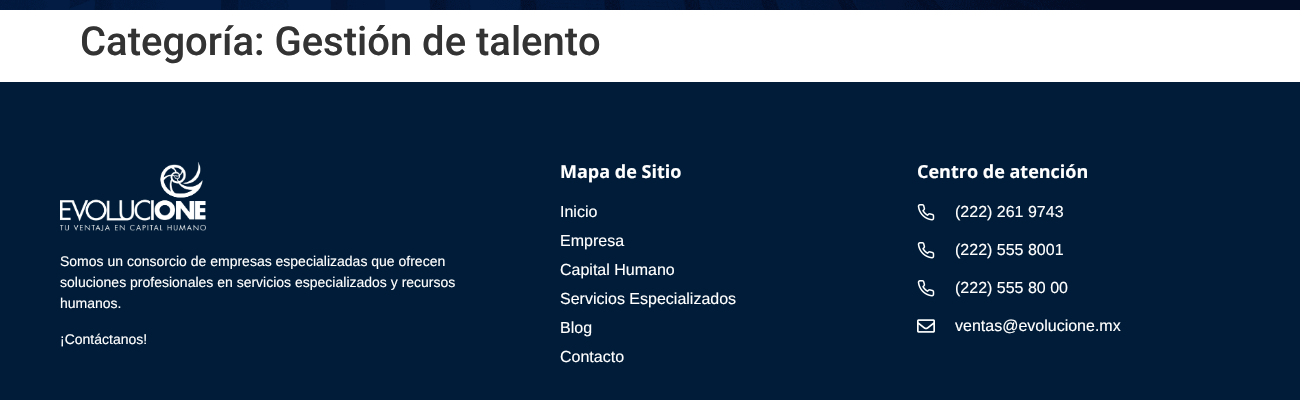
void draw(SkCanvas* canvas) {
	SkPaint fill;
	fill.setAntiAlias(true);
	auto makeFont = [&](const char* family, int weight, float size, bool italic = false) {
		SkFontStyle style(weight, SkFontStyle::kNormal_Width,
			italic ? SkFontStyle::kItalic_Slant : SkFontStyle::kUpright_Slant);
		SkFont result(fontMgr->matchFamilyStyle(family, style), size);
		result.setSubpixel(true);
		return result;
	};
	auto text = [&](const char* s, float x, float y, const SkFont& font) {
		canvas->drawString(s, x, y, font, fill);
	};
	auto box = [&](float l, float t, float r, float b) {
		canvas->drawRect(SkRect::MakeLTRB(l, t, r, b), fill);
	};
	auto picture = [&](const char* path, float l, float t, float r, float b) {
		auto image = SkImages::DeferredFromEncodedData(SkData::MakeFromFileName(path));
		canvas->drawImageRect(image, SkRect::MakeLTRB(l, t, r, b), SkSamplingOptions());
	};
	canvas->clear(0xFFFFFFFF);
	picture("image0.png", 0, 0, 1300, 10);
	fill.setColor(0xFF001C38);
	box(0, 82, 1300, 400);
	picture("image1.png", 60, 162, 206, 231);
	picture("image2.png", 917, 204, 935, 221);
	picture("image2.png", 917, 242, 935, 259);
	picture("image2.png", 917, 280, 935, 297);
	picture("image3.png", 917, 319, 935, 333);
	auto font1 = makeFont("Roboto", 500, 40);
	fill.setColor(0xFF333333);
	text("Categoría: Gestión de talento", 80, 55, font1);
	auto font2 = makeFont("Liberation Sans", 400, 14);
	fill.setColor(0xFFFFFFFF);
	text("Somos un consorcio de empresas especializadas que ofrecen", 60, 266, font2);
	text("soluciones profesionales en servicios especializados y recursos", 60, 287, font2);
	text("humanos.", 60, 308, font2);
	text("¡Contáctanos!", 60, 344, font2);
	auto font3 = makeFont("Open Sans", 700, 18);
	text("Mapa de Sitio", 560, 178, font3);
	auto font4 = makeFont("Liberation Sans", 400, 16);
	text("Inicio", 560, 217, font4);
	text("Empresa", 560, 246, font4);
	text("Capital Humano", 560, 275, font4);
	text("Servicios Especializados", 560, 304, font4);
	text("Blog", 560, 333, font4);
	text("Contacto", 560, 362, font4);
	text("Centro de atención", 917, 178, font3);
	text("(222) 261 9743", 955, 217, font4);
	text("(222) 555 8001", 955, 255, font4);
	text("(222) 555 80 00", 955, 293, font4);
	text("ventas@evolucione.mx", 955, 331, font4);
}
